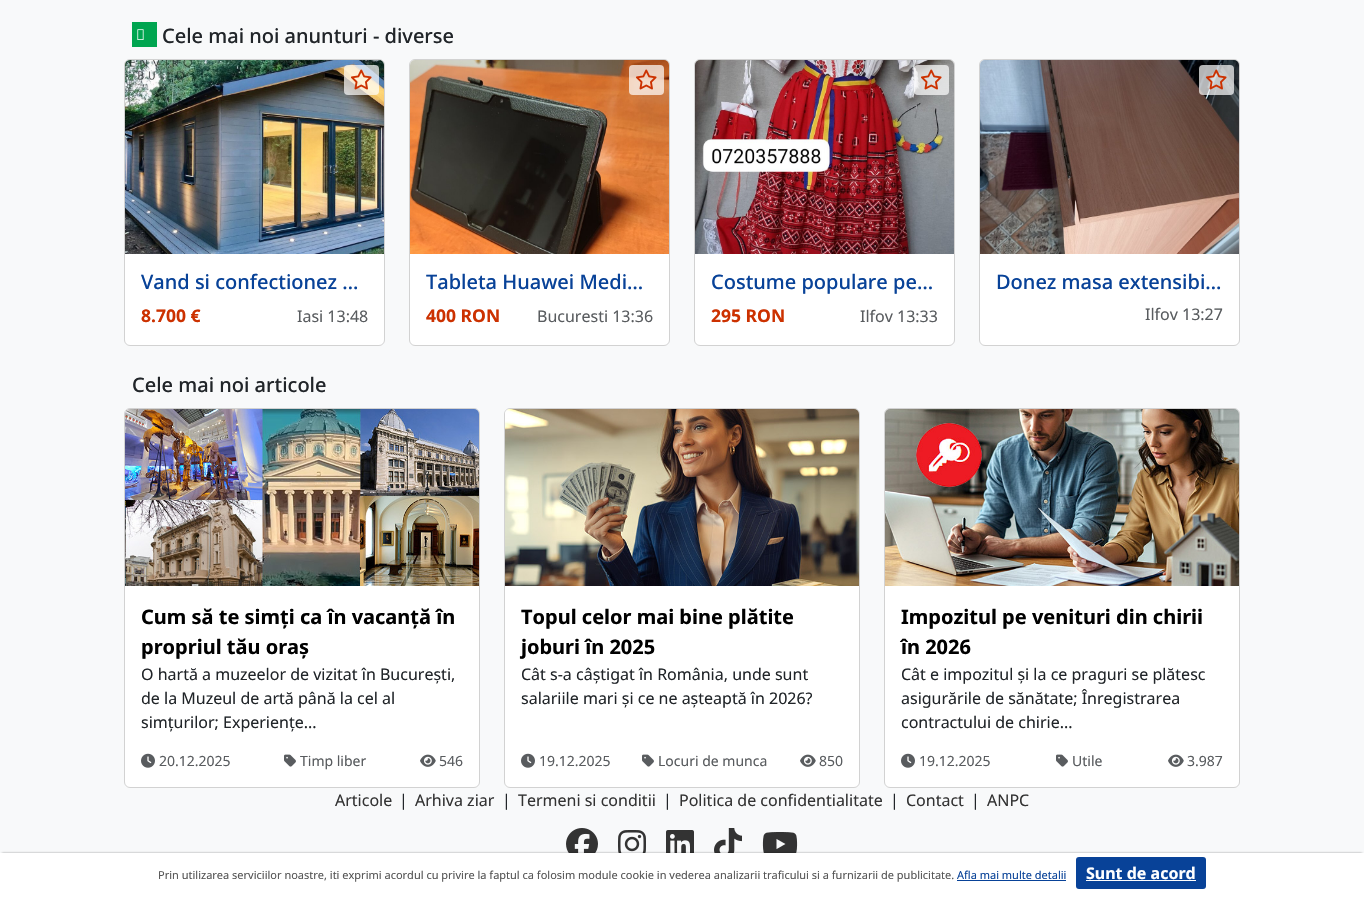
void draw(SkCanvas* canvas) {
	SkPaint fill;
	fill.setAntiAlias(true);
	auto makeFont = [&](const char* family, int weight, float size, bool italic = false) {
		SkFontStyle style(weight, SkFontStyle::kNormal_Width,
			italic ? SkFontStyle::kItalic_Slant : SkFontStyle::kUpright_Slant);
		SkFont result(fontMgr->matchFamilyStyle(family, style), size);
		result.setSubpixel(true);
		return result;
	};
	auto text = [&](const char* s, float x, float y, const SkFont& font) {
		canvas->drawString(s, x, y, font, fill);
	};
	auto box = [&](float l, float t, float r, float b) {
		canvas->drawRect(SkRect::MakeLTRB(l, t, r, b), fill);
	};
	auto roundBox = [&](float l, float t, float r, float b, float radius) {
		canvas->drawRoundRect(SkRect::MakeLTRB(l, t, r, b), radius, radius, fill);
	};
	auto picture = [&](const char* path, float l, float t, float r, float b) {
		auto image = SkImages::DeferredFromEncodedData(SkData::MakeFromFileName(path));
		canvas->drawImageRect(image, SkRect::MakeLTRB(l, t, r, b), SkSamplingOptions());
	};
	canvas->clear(0xFFF8F9FA);
	fill.setColor(0xFF00A550);
	box(132, 22, 157, 47);
	picture("image0.png", 137, 29, 144, 40);
	fill.setColor(0xFFFFFFFF);
	canvas->drawRoundRect(SkRect::MakeLTRB(124.5f, 59.5f, 384.5f, 345.5f), 5.5f, 5.5f, fill);
	fill.setStyle(SkPaint::kStroke_Style);
	fill.setStrokeWidth(1);
	fill.setColor(0xFFD2D2D2);
	canvas->drawRoundRect(SkRect::MakeLTRB(124.5f, 59.5f, 384.5f, 345.5f), 5.5f, 5.5f, fill);
	picture("image1.png", 125, 60, 384, 254);
	fill.setStyle(SkPaint::kFill_Style);
	fill.setColor(0xB3FFFFFF);
	roundBox(344, 65, 379, 95, 4);
	picture("image2.png", 351, 69, 372, 90);
	fill.setColor(0xFFFFFFFF);
	canvas->drawRoundRect(SkRect::MakeLTRB(409.5f, 59.5f, 669.5f, 345.5f), 5.5f, 5.5f, fill);
	fill.setStyle(SkPaint::kStroke_Style);
	fill.setColor(0xFFD2D2D2);
	canvas->drawRoundRect(SkRect::MakeLTRB(409.5f, 59.5f, 669.5f, 345.5f), 5.5f, 5.5f, fill);
	picture("image3.png", 410, 60, 669, 254);
	fill.setStyle(SkPaint::kFill_Style);
	fill.setColor(0xB3FFFFFF);
	roundBox(629, 65, 664, 95, 4);
	picture("image4.png", 636, 69, 657, 90);
	fill.setColor(0xFFFFFFFF);
	canvas->drawRoundRect(SkRect::MakeLTRB(694.5f, 59.5f, 954.5f, 345.5f), 5.5f, 5.5f, fill);
	fill.setStyle(SkPaint::kStroke_Style);
	fill.setColor(0xFFD2D2D2);
	canvas->drawRoundRect(SkRect::MakeLTRB(694.5f, 59.5f, 954.5f, 345.5f), 5.5f, 5.5f, fill);
	picture("image5.png", 695, 60, 954, 254);
	fill.setStyle(SkPaint::kFill_Style);
	fill.setColor(0xB3FFFFFF);
	roundBox(914, 65, 949, 95, 4);
	picture("image6.png", 921, 69, 942, 90);
	fill.setColor(0xFFFFFFFF);
	canvas->drawRoundRect(SkRect::MakeLTRB(979.5f, 59.5f, 1239.5f, 345.5f), 5.5f, 5.5f, fill);
	fill.setStyle(SkPaint::kStroke_Style);
	fill.setColor(0xFFD2D2D2);
	canvas->drawRoundRect(SkRect::MakeLTRB(979.5f, 59.5f, 1239.5f, 345.5f), 5.5f, 5.5f, fill);
	picture("image7.png", 980, 60, 1239, 254);
	fill.setStyle(SkPaint::kFill_Style);
	fill.setColor(0xB3FFFFFF);
	roundBox(1199, 65, 1234, 95, 4);
	picture("image8.png", 1206, 69, 1227, 90);
	fill.setColor(0xFFFFFFFF);
	canvas->drawRoundRect(SkRect::MakeLTRB(124.5f, 408.5f, 479.5f, 787.5f), 5.5f, 5.5f, fill);
	fill.setStyle(SkPaint::kStroke_Style);
	fill.setColor(0xFFD2D2D2);
	canvas->drawRoundRect(SkRect::MakeLTRB(124.5f, 408.5f, 479.5f, 787.5f), 5.5f, 5.5f, fill);
	picture("image9.png", 125, 409, 479, 586);
	picture("image10.png", 141, 753, 155, 768);
	picture("image11.png", 284, 754, 296, 767);
	picture("image12.png", 420, 754, 436, 767);
	fill.setStyle(SkPaint::kFill_Style);
	fill.setColor(0xFFFFFFFF);
	canvas->drawRoundRect(SkRect::MakeLTRB(504.5f, 408.5f, 859.5f, 787.5f), 5.5f, 5.5f, fill);
	fill.setStyle(SkPaint::kStroke_Style);
	fill.setColor(0xFFD2D2D2);
	canvas->drawRoundRect(SkRect::MakeLTRB(504.5f, 408.5f, 859.5f, 787.5f), 5.5f, 5.5f, fill);
	picture("image13.png", 505, 409, 859, 586);
	picture("image10.png", 521, 753, 535, 768);
	picture("image11.png", 642, 754, 654, 767);
	picture("image12.png", 800, 754, 816, 767);
	fill.setStyle(SkPaint::kFill_Style);
	fill.setColor(0xFFFFFFFF);
	canvas->drawRoundRect(SkRect::MakeLTRB(884.5f, 408.5f, 1239.5f, 787.5f), 5.5f, 5.5f, fill);
	fill.setStyle(SkPaint::kStroke_Style);
	fill.setColor(0xFFD2D2D2);
	canvas->drawRoundRect(SkRect::MakeLTRB(884.5f, 408.5f, 1239.5f, 787.5f), 5.5f, 5.5f, fill);
	picture("image14.png", 885, 409, 1239, 586);
	picture("image10.png", 901, 753, 915, 768);
	picture("image11.png", 1056, 754, 1068, 767);
	picture("image12.png", 1168, 754, 1184, 767);
	picture("image15.png", 566, 828, 598, 853);
	picture("image16.png", 618, 830, 646, 853);
	picture("image17.png", 666, 830, 694, 853);
	picture("image18.png", 714, 828, 742, 853);
	picture("image19.png", 762, 832, 798, 853);
	fill.setStyle(SkPaint::kFill_Style);
	fill.setColor(0x66000000);
	fill.setMaskFilter(SkMaskFilter::MakeBlur(kNormal_SkBlurStyle, 1));
	canvas->drawRect(SkRect::MakeLTRB(2, 853, 1362, 903), fill);
	fill.setMaskFilter(nullptr);
	fill.setColor(0xFFFFFFFF);
	box(0, 853, 1364, 907);
	fill.setColor(0xFF084298);
	box(957, 880, 1066, 881);
	roundBox(1076, 857, 1206, 889, 3);
	fill.setColor(0xFFFFFFFF);
	box(1086, 880, 1196, 881);
	auto font1 = makeFont("Noto Sans", 500, 20);
	fill.setColor(0xFF212529);
	text("Cele mai noi anunturi - diverse", 162, 43, font1);
	fill.setColor(0xFF084298);
	text("Vand si confectionez …", 141, 289, font1);
	auto font2 = makeFont("Noto Sans", 700, 17.5f);
	fill.setColor(0xFFCC3100);
	text("8.700 €", 141, 322, font2);
	auto font3 = makeFont("Noto Sans", 400, 16);
	fill.setColor(0xFF595C5F);
	text("Iasi 13:48", 297, 322, font3);
	fill.setColor(0xFF084298);
	text("Tableta Huawei Medi…", 426, 289, font1);
	fill.setColor(0xFFCC3100);
	text("400 RON", 426, 322, font2);
	fill.setColor(0xFF595C5F);
	text("Bucuresti 13:36", 537, 322, font3);
	fill.setColor(0xFF084298);
	text("Costume populare pe…", 711, 289, font1);
	fill.setColor(0xFFCC3100);
	text("295 RON", 711, 322, font2);
	fill.setColor(0xFF595C5F);
	text("Ilfov 13:33", 860, 322, font3);
	fill.setColor(0xFF084298);
	text("Donez masa extensibi…", 996, 289, font1);
	fill.setColor(0xFF595C5F);
	text("Ilfov 13:27", 1145, 320, font3);
	fill.setColor(0xFF212529);
	text("Cele mai noi articole", 132, 392, font1);
	auto font4 = makeFont("Noto Sans", 700, 20);
	fill.setColor(0xFF000000);
	text("Cum să te simți ca în vacanță în", 141, 624, font4);
	text("propriul tău oraș", 141, 654, font4);
	fill.setColor(0xFF212529);
	text("O hartă a muzeelor de vizitat în București,", 141, 680, font3);
	text("de la Muzeul de artă până la cel al", 141, 704, font3);
	text("simțurilor; Experiențe...", 141, 728, font3);
	auto font5 = makeFont("Noto Sans", 400, 14);
	fill.setColor(0xFF595C5F);
	text("20.12.2025", 159, 766, font5);
	text("Timp liber", 300, 766, font5);
	text("546", 439, 766, font5);
	fill.setColor(0xFF000000);
	text("Topul celor mai bine plătite", 521, 624, font4);
	text("joburi în 2025", 521, 654, font4);
	fill.setColor(0xFF212529);
	text("Cât s-a câștigat în România, unde sunt", 521, 680, font3);
	text("salariile mari și ce ne așteaptă în 2026?", 521, 704, font3);
	fill.setColor(0xFF595C5F);
	text("19.12.2025", 539, 766, font5);
	text("Locuri de munca", 658, 766, font5);
	text("850", 819, 766, font5);
	fill.setColor(0xFF000000);
	text("Impozitul pe venituri din chirii", 901, 624, font4);
	text("în 2026", 901, 654, font4);
	fill.setColor(0xFF212529);
	text("Cât e impozitul și la ce praguri se plătesc", 901, 680, font3);
	text("asigurările de sănătate; Înregistrarea", 901, 704, font3);
	text("contractului de chirie...", 901, 728, font3);
	fill.setColor(0xFF595C5F);
	text("19.12.2025", 919, 766, font5);
	text("Utile", 1072, 766, font5);
	text("3.987", 1187, 766, font5);
	fill.setColor(0xFF333333);
	text("Articole", 335, 806, font3);
	fill.setColor(0xFF212529);
	text("|", 399, 806, font3);
	fill.setColor(0xFF333333);
	text("Arhiva ziar", 415, 806, font3);
	fill.setColor(0xFF212529);
	text("|", 502, 806, font3);
	fill.setColor(0xFF333333);
	text("Termeni si conditii", 518, 806, font3);
	fill.setColor(0xFF212529);
	text("|", 663, 806, font3);
	fill.setColor(0xFF333333);
	text("Politica de confidentialitate", 679, 806, font3);
	fill.setColor(0xFF212529);
	text("|", 890, 806, font3);
	fill.setColor(0xFF333333);
	text("Contact", 906, 806, font3);
	fill.setColor(0xFF212529);
	text("|", 971, 806, font3);
	fill.setColor(0xFF333333);
	text("ANPC", 987, 806, font3);
	auto font6 = makeFont("Noto Sans", 400, 11);
	fill.setColor(0xFF555555);
	text("Prin utilizarea serviciilor noastre, iti exprimi acordul cu privire la faptul ca folosim module cookie in vederea analizarii traficului si a furnizarii de publicitate.", 158, 879, font6);
	fill.setColor(0xFF084298);
	text("Afla mai multe detalii", 957, 879, font6);
	auto font7 = makeFont("Noto Sans", 700, 16);
	fill.setColor(0xFFFFFFFF);
	text("Sunt de acord", 1086, 879, font7);
}
